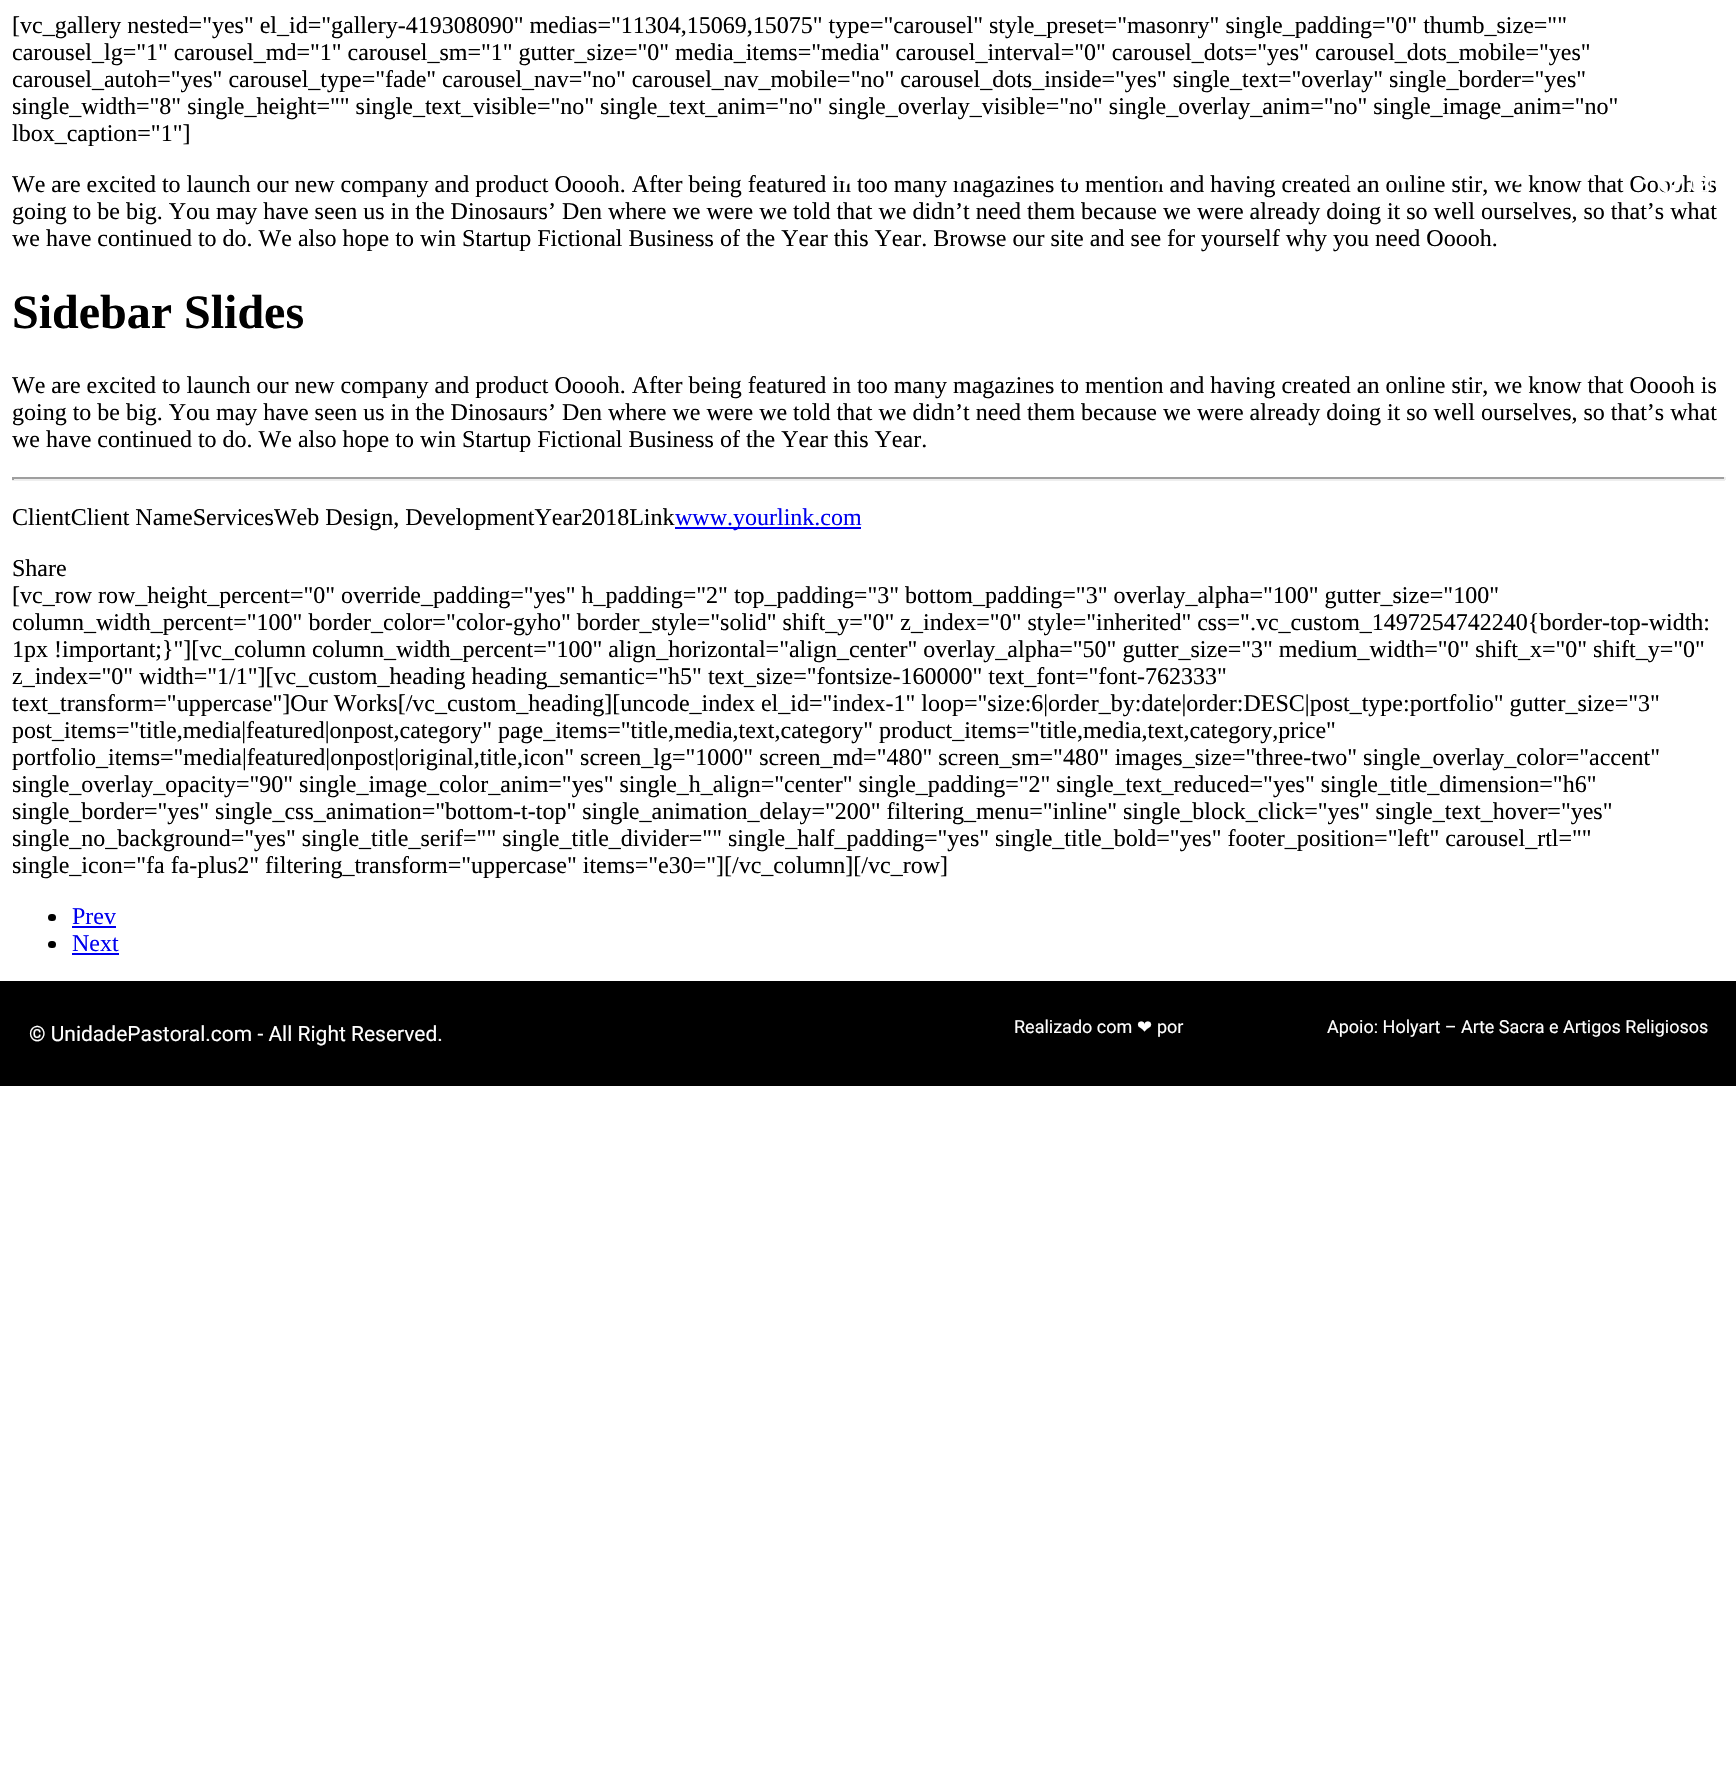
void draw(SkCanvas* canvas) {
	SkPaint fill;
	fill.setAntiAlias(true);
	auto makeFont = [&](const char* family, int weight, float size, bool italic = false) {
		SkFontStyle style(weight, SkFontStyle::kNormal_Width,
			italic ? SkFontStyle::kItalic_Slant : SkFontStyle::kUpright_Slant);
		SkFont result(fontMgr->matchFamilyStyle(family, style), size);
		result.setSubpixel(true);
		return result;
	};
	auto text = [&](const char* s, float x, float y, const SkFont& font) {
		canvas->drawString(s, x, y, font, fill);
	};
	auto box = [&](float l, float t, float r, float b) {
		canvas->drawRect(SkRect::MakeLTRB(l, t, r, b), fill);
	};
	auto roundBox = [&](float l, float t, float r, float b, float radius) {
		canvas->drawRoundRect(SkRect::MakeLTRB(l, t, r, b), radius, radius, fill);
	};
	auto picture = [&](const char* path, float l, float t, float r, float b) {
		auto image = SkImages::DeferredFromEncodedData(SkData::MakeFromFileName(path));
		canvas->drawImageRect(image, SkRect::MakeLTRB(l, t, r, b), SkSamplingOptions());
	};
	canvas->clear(0xFFFFFFFF);
	fill.setColor(0xFF9F9F9F);
	box(12, 477, 1725, 479);
	fill.setColor(0xFFEEEEEE);
	box(1724, 477, 1726, 480);
	box(12, 479, 1725, 481);
	fill.setColor(0xFF9F9F9F);
	box(12, 477, 14, 480);
	fill.setColor(0xFF0000EE);
	box(675, 527, 861, 529);
	fill.setColor(0xFF000000);
	roundBox(48, 914, 56, 921, 3.5f);
	fill.setColor(0xFF0000EE);
	box(72, 926, 116, 928);
	fill.setColor(0xFF000000);
	roundBox(48, 941, 56, 948, 3.5f);
	fill.setColor(0xFF0000EE);
	box(72, 953, 119, 955);
	fill.setColor(0xFF000000);
	box(0, 981, 1736, 1086);
	auto font1 = makeFont("Liberation Serif", 400, 24);
	text("[vc_gallery nested=\"yes\" el_id=\"gallery-419308090\" medias=\"11304,15069,15075\" type=\"carousel\" style_preset=\"masonry\" single_padding=\"0\" thumb_size=\"\"", 12, 33, font1);
	text("carousel_lg=\"1\" carousel_md=\"1\" carousel_sm=\"1\" gutter_size=\"0\" media_items=\"media\" carousel_interval=\"0\" carousel_dots=\"yes\" carousel_dots_mobile=\"yes\"", 12, 60, font1);
	text("carousel_autoh=\"yes\" carousel_type=\"fade\" carousel_nav=\"no\" carousel_nav_mobile=\"no\" carousel_dots_inside=\"yes\" single_text=\"overlay\" single_border=\"yes\"", 12, 87, font1);
	text("single_width=\"8\" single_height=\"\" single_text_visible=\"no\" single_text_anim=\"no\" single_overlay_visible=\"no\" single_overlay_anim=\"no\" single_image_anim=\"no\"", 12, 114, font1);
	text("lbox_caption=\"1\"]", 12, 141, font1);
	text("We are excited to launch our new company and product Ooooh. After being featured in too many magazines to mention and having created an online stir, we know that Ooooh is", 12, 192, font1);
	text("going to be big. You may have seen us in the Dinosaurs’ Den where we were we told that we didn’t need them because we were already doing it so well ourselves, so that’s what", 12, 219, font1);
	text("we have continued to do. We also hope to win Startup Fictional Business of the Year this Year. Browse our site and see for yourself why you need Ooooh.", 12, 246, font1);
	auto font2 = makeFont("Liberation Serif", 700, 48);
	text("Sidebar Slides", 12, 328, font2);
	text("We are excited to launch our new company and product Ooooh. After being featured in too many magazines to mention and having created an online stir, we know that Ooooh is", 12, 393, font1);
	text("going to be big. You may have seen us in the Dinosaurs’ Den where we were we told that we didn’t need them because we were already doing it so well ourselves, so that’s what", 12, 420, font1);
	text("we have continued to do. We also hope to win Startup Fictional Business of the Year this Year.", 12, 447, font1);
	text("ClientClient NameServicesWeb Design, DevelopmentYear2018Link", 12, 525, font1);
	fill.setColor(0xFF0000EE);
	text("www.yourlink.com", 675, 525, font1);
	fill.setColor(0xFF000000);
	text("Share", 12, 576, font1);
	text("[vc_row row_height_percent=\"0\" override_padding=\"yes\" h_padding=\"2\" top_padding=\"3\" bottom_padding=\"3\" overlay_alpha=\"100\" gutter_size=\"100\"", 12, 603, font1);
	text("column_width_percent=\"100\" border_color=\"color-gyho\" border_style=\"solid\" shift_y=\"0\" z_index=\"0\" style=\"inherited\" css=\".vc_custom_1497254742240{border-top-width:", 12, 630, font1);
	text("1px !important;}\"][vc_column column_width_percent=\"100\" align_horizontal=\"align_center\" overlay_alpha=\"50\" gutter_size=\"3\" medium_width=\"0\" shift_x=\"0\" shift_y=\"0\"", 12, 657, font1);
	text("z_index=\"0\" width=\"1/1\"][vc_custom_heading heading_semantic=\"h5\" text_size=\"fontsize-160000\" text_font=\"font-762333\"", 12, 684, font1);
	text("text_transform=\"uppercase\"]Our Works[/vc_custom_heading][uncode_index el_id=\"index-1\" loop=\"size:6|order_by:date|order:DESC|post_type:portfolio\" gutter_size=\"3\"", 12, 711, font1);
	text("post_items=\"title,media|featured|onpost,category\" page_items=\"title,media,text,category\" product_items=\"title,media,text,category,price\"", 12, 738, font1);
	text("portfolio_items=\"media|featured|onpost|original,title,icon\" screen_lg=\"1000\" screen_md=\"480\" screen_sm=\"480\" images_size=\"three-two\" single_overlay_color=\"accent\"", 12, 765, font1);
	text("single_overlay_opacity=\"90\" single_image_color_anim=\"yes\" single_h_align=\"center\" single_padding=\"2\" single_text_reduced=\"yes\" single_title_dimension=\"h6\"", 12, 792, font1);
	text("single_border=\"yes\" single_css_animation=\"bottom-t-top\" single_animation_delay=\"200\" filtering_menu=\"inline\" single_block_click=\"yes\" single_text_hover=\"yes\"", 12, 819, font1);
	text("single_no_background=\"yes\" single_title_serif=\"\" single_title_divider=\"\" single_half_padding=\"yes\" single_title_bold=\"yes\" footer_position=\"left\" carousel_rtl=\"\"", 12, 846, font1);
	text("single_icon=\"fa fa-plus2\" filtering_transform=\"uppercase\" items=\"e30=\"][/vc_column][/vc_row]", 12, 873, font1);
	picture("image0.png", 785, 181, 793, 184);
	picture("image1.png", 843, 180, 850, 185);
	picture("image2.png", 956, 180, 964, 184);
	fill.setColor(0xFFFFFFFF);
	box(1069, 180, 1076, 183);
	picture("image3.png", 1157, 180, 1162, 185);
	auto font3 = makeFont("Roboto", 400, 15);
	text("I", 1347, 186, font3);
	picture("image4.png", 1398, 180, 1407, 184);
	picture("image5.png", 1515, 180, 1521, 185);
	picture("image6.png", 1642, 179, 1646, 185);
	picture("image7.png", 1659, 180, 1681, 193);
	picture("image8.png", 1690, 176, 1712, 192);
	fill.setColor(0xFF0000EE);
	text("Prev", 72, 924, font1);
	text("Next", 72, 951, font1);
	auto font4 = makeFont("Roboto", 400, 21);
	fill.setColor(0xFFFFFFFF);
	text("© UnidadePastoral.com - All Right Reserved.", 29, 1041, font4);
	auto font5 = makeFont("Roboto", 400, 18);
	text("Realizado com", 1014, 1033, font5);
	auto font6 = makeFont("DejaVu Sans", 400, 18);
	text("❤", 1137, 1033, font6);
	text("por", 1157, 1033, font5);
	text("Apoio: Holyart – Arte Sacra e Artigos Religiosos", 1327, 1033, font5);
}
